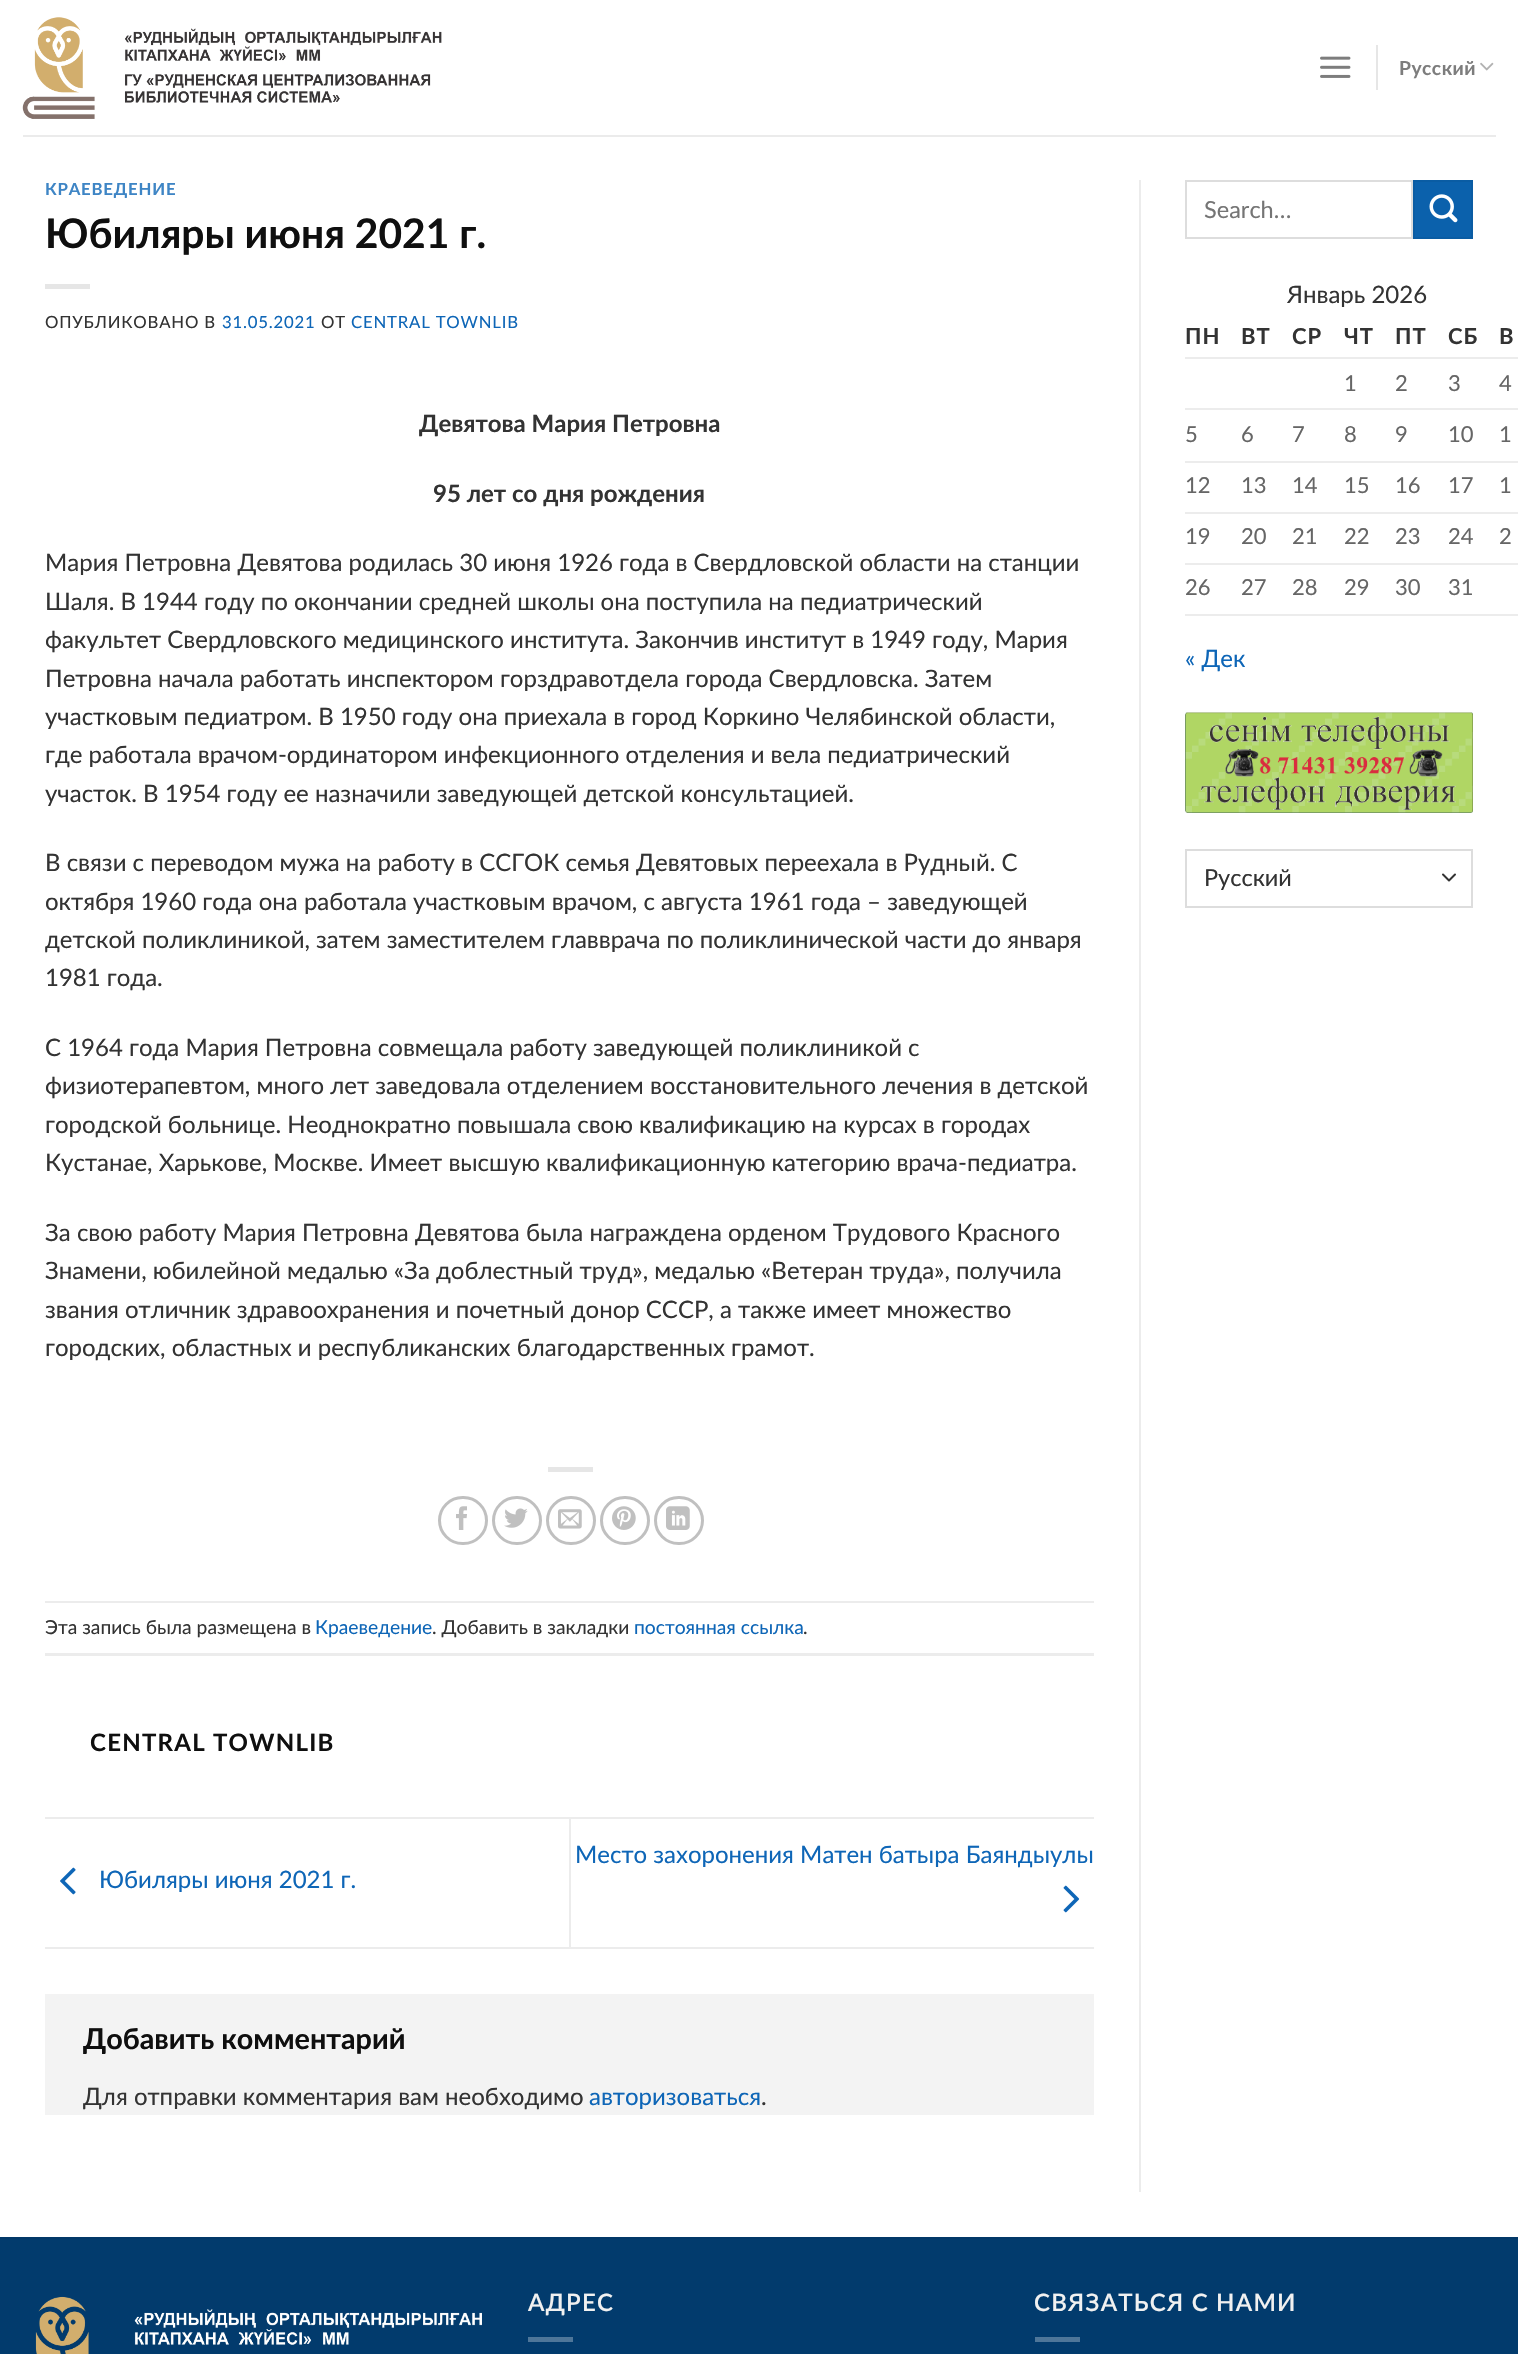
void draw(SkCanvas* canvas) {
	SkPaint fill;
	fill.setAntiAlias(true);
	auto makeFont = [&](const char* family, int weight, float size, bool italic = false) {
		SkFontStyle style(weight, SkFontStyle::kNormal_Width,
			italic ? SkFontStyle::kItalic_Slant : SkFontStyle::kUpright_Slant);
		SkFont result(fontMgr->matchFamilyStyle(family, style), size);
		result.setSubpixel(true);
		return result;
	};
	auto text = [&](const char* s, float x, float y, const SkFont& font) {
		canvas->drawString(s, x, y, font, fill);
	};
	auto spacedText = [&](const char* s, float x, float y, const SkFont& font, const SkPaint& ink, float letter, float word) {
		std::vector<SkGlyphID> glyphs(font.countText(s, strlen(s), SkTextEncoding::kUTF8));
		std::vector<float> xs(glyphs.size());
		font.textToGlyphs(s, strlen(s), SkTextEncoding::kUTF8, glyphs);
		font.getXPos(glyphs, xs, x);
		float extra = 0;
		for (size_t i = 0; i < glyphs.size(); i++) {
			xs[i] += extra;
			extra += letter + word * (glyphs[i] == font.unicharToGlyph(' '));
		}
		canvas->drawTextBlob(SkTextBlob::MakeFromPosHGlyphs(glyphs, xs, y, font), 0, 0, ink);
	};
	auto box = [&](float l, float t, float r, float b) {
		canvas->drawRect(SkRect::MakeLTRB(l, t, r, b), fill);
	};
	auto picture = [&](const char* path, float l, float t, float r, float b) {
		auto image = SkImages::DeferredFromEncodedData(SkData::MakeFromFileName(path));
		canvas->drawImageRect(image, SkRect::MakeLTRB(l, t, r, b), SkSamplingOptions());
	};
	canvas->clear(0xFFFFFFFF);
	picture("image0.png", 22, 17, 442, 119);
	picture("image1.png", 1320, 56, 1351, 78);
	fill.setColor(0xFFE6E6E6);
	box(1376, 45, 1378, 90);
	picture("image2.png", 1480, 62, 1494, 71);
	fill.setColor(0xFFEBEBEB);
	box(23, 135, 1496, 137);
	fill.setColor(0xFFE6E6E6);
	box(45, 284, 90, 289);
	box(548, 1467, 593, 1472);
	fill.setStyle(SkPaint::kStroke_Style);
	fill.setStrokeWidth(3);
	fill.setColor(0xFFC0C0C0);
	canvas->drawRoundRect(SkRect::MakeLTRB(439.5f, 1497.5f, 486.5f, 1543.5f), 23, 23, fill);
	picture("image3.png", 456, 1506, 467, 1530);
	canvas->drawRoundRect(SkRect::MakeLTRB(493.5f, 1497.5f, 540.5f, 1543.5f), 23, 23, fill);
	picture("image4.png", 504, 1508, 528, 1528);
	canvas->drawRoundRect(SkRect::MakeLTRB(547.5f, 1497.5f, 594.5f, 1543.5f), 23, 23, fill);
	picture("image5.png", 558, 1509, 582, 1529);
	canvas->drawRoundRect(SkRect::MakeLTRB(601.5f, 1497.5f, 648.5f, 1543.5f), 23, 23, fill);
	picture("image6.png", 612, 1506, 636, 1530);
	canvas->drawRoundRect(SkRect::MakeLTRB(655.5f, 1497.5f, 702.5f, 1543.5f), 23, 23, fill);
	picture("image7.png", 666, 1506, 690, 1530);
	fill.setStyle(SkPaint::kFill_Style);
	fill.setColor(0xFFECECEC);
	box(45, 1601, 1094, 1603);
	box(45, 1653, 1094, 1656);
	box(45, 1817, 1094, 1819);
	box(45, 1947, 1094, 1949);
	box(569, 1818, 571, 1947);
	picture("image8.png", 1063, 1885, 1080, 1913);
	picture("image9.png", 60, 1867, 76, 1895);
	fill.setColor(0xFFF3F3F3);
	box(45, 1994, 1094, 2115);
	fill.setColor(0xFFECECEC);
	box(1139, 180, 1141, 2192);
	fill.setStyle(SkPaint::kStroke_Style);
	fill.setStrokeWidth(2);
	fill.setColor(0xFFDDDDDD);
	canvas->drawRect(SkRect::MakeLTRB(1186, 181, 1412, 238), fill);
	fill.setStyle(SkPaint::kFill_Style);
	fill.setColor(0xFF0B61AC);
	canvas->drawRect(SkRect::MakeLTRB(1414, 181, 1472, 238), fill);
	fill.setStyle(SkPaint::kStroke_Style);
	fill.setColor(0xFF0A5CA3);
	canvas->drawRect(SkRect::MakeLTRB(1414, 181, 1472, 238), fill);
	picture("image10.png", 1429, 194, 1458, 223);
	fill.setStyle(SkPaint::kFill_Style);
	fill.setColor(0xFFECECEC);
	box(1185, 357, 1518, 359);
	box(1185, 408, 1518, 410);
	box(1185, 461, 1518, 463);
	box(1185, 512, 1518, 514);
	box(1185, 563, 1518, 565);
	box(1185, 614, 1518, 616);
	picture("image11.png", 1185, 712, 1473, 813);
	fill.setStyle(SkPaint::kStroke_Style);
	fill.setStrokeCap(SkPaint::kRound_Cap);
	fill.setStrokeJoin(SkPaint::kRound_Join);
	fill.setColor(0xFF333333);
	canvas->drawPath(SkPathBuilder().moveTo(1443, 874.5f).lineTo(1449, 880.5f).lineTo(1455, 874.5f).detach(), fill);
	fill.setStrokeCap(SkPaint::kButt_Cap);
	fill.setStrokeJoin(SkPaint::kMiter_Join);
	fill.setColor(0xFFDDDDDD);
	canvas->drawRect(SkRect::MakeLTRB(1186, 850, 1472, 907), fill);
	fill.setStyle(SkPaint::kFill_Style);
	fill.setColor(0xFF023B6D);
	box(0, 2239, 1518, 2354);
	fill.setColor(0xFF023868);
	box(0, 2237, 1518, 2239);
	picture("image12.png", 35, 2296, 482, 2354);
	fill.setColor(0xFF4E7699);
	box(528, 2337, 573, 2342);
	box(1035, 2337, 1080, 2342);
	auto font1 = makeFont("Lato", 700, 19.25f);
	fill.setColor(0xFF7D7D7D);
	spacedText("Русский", 1399, 75, font1, fill, 0.5f, 0);
	auto font2 = makeFont("Lato", 700, 16.75f);
	fill.setColor(0xFF3E85C5);
	spacedText("КРАЕВЕДЕНИЕ", 45, 195, font2, fill, 0.8f, 0);
	auto font3 = makeFont("Lato", 700, 40.75f);
	fill.setColor(0xFF0F0F0F);
	text("Юбиляры июня 2021 г.", 45, 248, font3);
	auto font4 = makeFont("Lato", 400, 16.75f);
	fill.setColor(0xFF333333);
	spacedText("ОПУБЛИКОВАНО В", 45, 328, font4, fill, 0.8f, 0);
	fill.setColor(0xFF0E66B7);
	spacedText("31.05.2021", 222, 328, font4, fill, 0.8f, 0);
	fill.setColor(0xFF333333);
	spacedText("ОТ", 321, 328, font4, fill, 0.8f, 0);
	fill.setColor(0xFF0E66B7);
	spacedText("CENTRAL TOWNLIB", 351, 328, font4, fill, 0.8f, 0);
	auto font5 = makeFont("Lato", 700, 24);
	fill.setColor(0xFF333333);
	text("Девятова Мария Петровна", 419, 432, font5);
	text("95 лет со дня рождения", 433, 502, font5);
	auto font6 = makeFont("Lato", 400, 24);
	text("Мария Петровна Девятова родилась 30 июня 1926 года в Свердловской области на станции", 45, 571, font6);
	text("Шаля. В 1944 году по окончании средней школы она поступила на педиатрический", 45, 610, font6);
	text("факультет Свердловского медицинского института. Закончив институт в 1949 году, Мария", 45, 648, font6);
	text("Петровна начала работать инспектором горздравотдела города Свердловска. Затем", 45, 687, font6);
	text("участковым педиатром. В 1950 году она приехала в город Коркино Челябинской области,", 45, 725, font6);
	text("где работала врачом-ординатором инфекционного отделения и вела педиатрический", 45, 763, font6);
	text("участок. В 1954 году ее назначили заведующей детской консультацией.", 45, 802, font6);
	text("В связи с переводом мужа на работу в ССГОК семья Девятовых переехала в Рудный. С", 45, 871, font6);
	text("октября 1960 года она работала участковым врачом, с августа 1961 года – заведующей", 45, 910, font6);
	text("детской поликлиникой, затем заместителем главврача по поликлинической части до января", 45, 948, font6);
	text("1981 года.", 45, 986, font6);
	text("С 1964 года Мария Петровна совмещала работу заведующей поликлиникой с", 45, 1056, font6);
	text("физиотерапевтом, много лет заведовала отделением восстановительного лечения в детской", 45, 1094, font6);
	text("городской больнице. Неоднократно повышала свою квалификацию на курсах в городах", 45, 1133, font6);
	text("Кустанае, Харькове, Москве. Имеет высшую квалификационную категорию врача-педиатра.", 45, 1171, font6);
	text("За свою работу Мария Петровна Девятова была награждена орденом Трудового Красного", 45, 1241, font6);
	text("Знамени, юбилейной медалью «За доблестный труд», медалью «Ветеран труда», получила", 45, 1279, font6);
	text("звания отличник здравоохранения и почетный донор СССР, а также имеет множество", 45, 1318, font6);
	text("городских, областных и республиканских благодарственных грамот.", 45, 1356, font6);
	auto font7 = makeFont("Lato", 400, 19.25f);
	text("Эта запись была размещена в", 45, 1634, font7);
	fill.setColor(0xFF0E66B7);
	text("Краеведение", 315, 1634, font7);
	fill.setColor(0xFF333333);
	text(". Добавить в закладки", 432, 1634, font7);
	fill.setColor(0xFF0E66B7);
	text("постоянная ссылка", 634, 1634, font7);
	fill.setColor(0xFF333333);
	text(".", 803, 1634, font7);
	fill.setColor(0xFF0F0F0F);
	spacedText("CENTRAL TOWNLIB", 90, 1751, font5, fill, 1.25f, 0);
	fill.setColor(0xFF0E66B7);
	text("Место захоронения Матен батыра Баяндыулы", 575, 1863, font6);
	text("Юбиляры июня 2021 г.", 99, 1888, font6);
	auto font8 = makeFont("Lato", 700, 28.75f);
	fill.setColor(0xFF0F0F0F);
	text("Добавить комментарий", 83, 2049, font8);
	fill.setColor(0xFF333333);
	text("Для отправки комментария вам необходимо", 83, 2105, font6);
	fill.setColor(0xFF0E66B7);
	text("авторизоваться", 589, 2105, font6);
	fill.setColor(0xFF333333);
	text(".", 761, 2105, font6);
	auto font9 = makeFont("Lato", 400, 23.5f);
	fill.setColor(0xFF757575);
	text("Search…", 1204, 218, font9);
	fill.setColor(0xFF333333);
	text("Январь 2026", 1287, 303, font6);
	auto font10 = makeFont("Lato", 700, 22);
	spacedText("ПН", 1185, 344, font10, fill, 1, 0);
	spacedText("ВТ", 1241, 344, font10, fill, 1, 0);
	spacedText("СР", 1292, 344, font10, fill, 1, 0);
	spacedText("ЧТ", 1344, 344, font10, fill, 1, 0);
	spacedText("ПТ", 1395, 344, font10, fill, 1, 0);
	spacedText("СБ", 1448, 344, font10, fill, 1, 0);
	spacedText("В", 1499, 344, font10, fill, 1, 0);
	auto font11 = makeFont("Lato", 400, 22);
	fill.setColor(0xFF666666);
	text("1", 1344, 391, font11);
	text("2", 1395, 391, font11);
	text("3", 1448, 391, font11);
	text("4", 1499, 391, font11);
	text("5", 1185, 442, font11);
	text("6", 1241, 442, font11);
	text("7", 1292, 442, font11);
	text("8", 1344, 442, font11);
	text("9", 1395, 442, font11);
	text("10", 1448, 442, font11);
	text("1", 1499, 442, font11);
	text("12", 1185, 493, font11);
	text("13", 1241, 493, font11);
	text("14", 1292, 493, font11);
	text("15", 1344, 493, font11);
	text("16", 1395, 493, font11);
	text("17", 1448, 493, font11);
	text("1", 1499, 493, font11);
	text("19", 1185, 544, font11);
	text("20", 1241, 544, font11);
	text("21", 1292, 544, font11);
	text("22", 1344, 544, font11);
	text("23", 1395, 544, font11);
	text("24", 1448, 544, font11);
	text("2", 1499, 544, font11);
	text("26", 1185, 595, font11);
	text("27", 1241, 595, font11);
	text("28", 1292, 595, font11);
	text("29", 1344, 595, font11);
	text("30", 1395, 595, font11);
	text("31", 1448, 595, font11);
	fill.setColor(0xFF0E66B7);
	text("« Дек", 1185, 667, font6);
	fill.setColor(0xFF333333);
	text("Русский", 1204, 886, font9);
	auto font12 = makeFont("Lato", 600, 24);
	fill.setColor(0xFFF1F1F1);
	spacedText("АДРЕС", 528, 2311, font12, fill, 1.25f, 0);
	spacedText("СВЯЗАТЬСЯ С НАМИ", 1034, 2311, font12, fill, 1.25f, 0);
}
